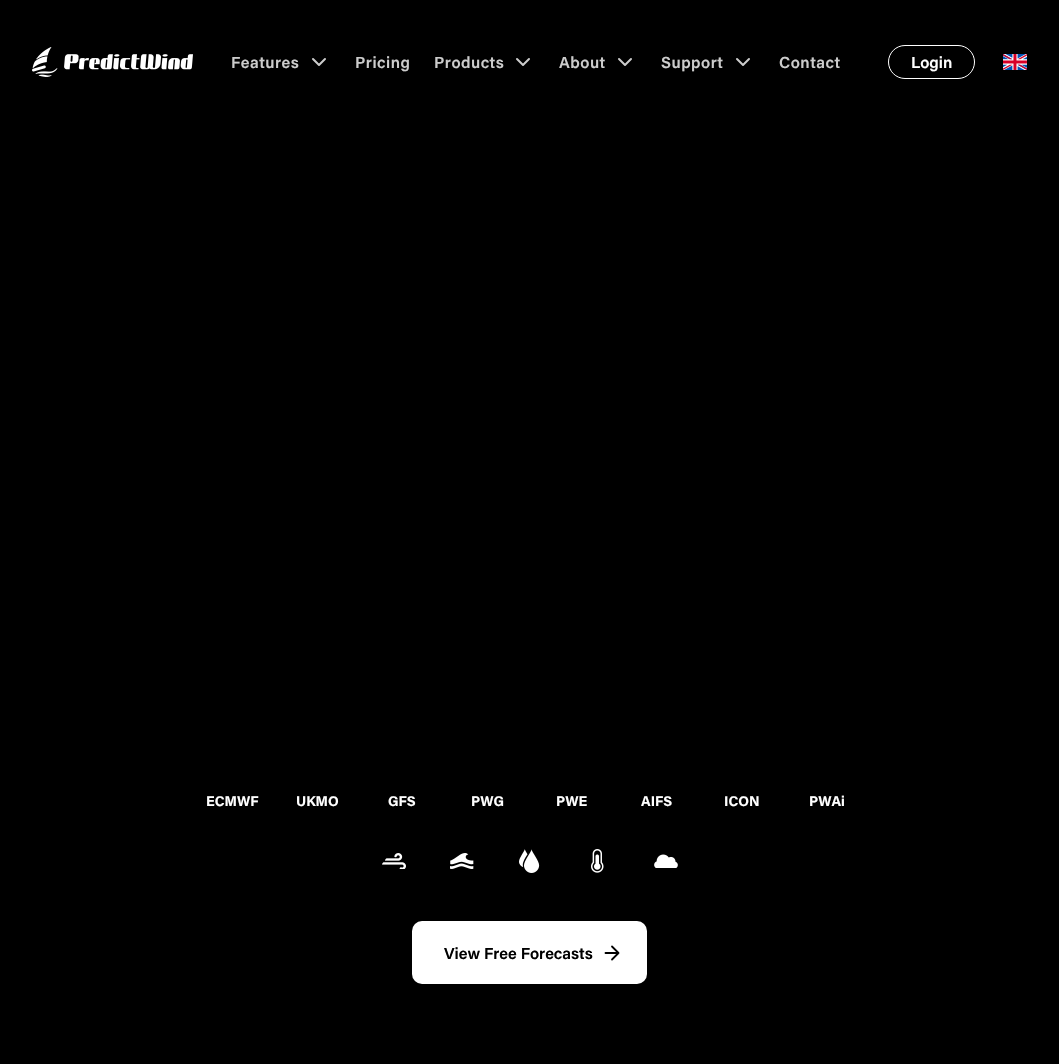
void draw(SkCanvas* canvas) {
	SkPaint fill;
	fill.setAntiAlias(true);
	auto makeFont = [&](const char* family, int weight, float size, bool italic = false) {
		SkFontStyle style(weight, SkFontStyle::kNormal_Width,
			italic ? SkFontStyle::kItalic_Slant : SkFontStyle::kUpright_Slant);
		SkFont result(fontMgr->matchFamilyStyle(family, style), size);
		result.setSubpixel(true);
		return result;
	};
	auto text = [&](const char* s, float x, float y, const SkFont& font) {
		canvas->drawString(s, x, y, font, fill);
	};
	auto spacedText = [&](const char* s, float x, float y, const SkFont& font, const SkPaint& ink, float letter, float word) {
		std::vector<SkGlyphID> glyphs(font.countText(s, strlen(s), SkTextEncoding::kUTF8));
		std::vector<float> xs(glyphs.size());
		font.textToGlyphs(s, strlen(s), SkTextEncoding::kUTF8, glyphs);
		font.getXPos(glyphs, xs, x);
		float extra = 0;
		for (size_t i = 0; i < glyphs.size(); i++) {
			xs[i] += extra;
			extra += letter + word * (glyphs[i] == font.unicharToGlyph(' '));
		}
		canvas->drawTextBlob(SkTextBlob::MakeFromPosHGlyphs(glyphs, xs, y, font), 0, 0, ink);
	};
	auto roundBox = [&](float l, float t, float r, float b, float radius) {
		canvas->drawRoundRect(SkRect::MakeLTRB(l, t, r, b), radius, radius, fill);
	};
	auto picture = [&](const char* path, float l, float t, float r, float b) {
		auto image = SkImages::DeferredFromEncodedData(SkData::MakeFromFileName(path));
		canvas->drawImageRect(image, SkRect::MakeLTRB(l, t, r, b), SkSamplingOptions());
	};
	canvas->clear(0xFF000000);
	picture("image0.png", 32, 47, 193, 77);
	fill.setStyle(SkPaint::kStroke_Style);
	fill.setStrokeWidth(2);
	fill.setStrokeCap(SkPaint::kRound_Cap);
	fill.setStrokeJoin(SkPaint::kRound_Join);
	fill.setColor(0xFFCCCCCC);
	canvas->drawPath(SkPathBuilder().moveTo(313, 59).lineTo(319, 65).lineTo(325, 59).detach(), fill);
	canvas->drawPath(SkPathBuilder().moveTo(517, 59).lineTo(523, 65).lineTo(529, 59).detach(), fill);
	canvas->drawPath(SkPathBuilder().moveTo(619, 59).lineTo(625, 65).lineTo(631, 59).detach(), fill);
	canvas->drawPath(SkPathBuilder().moveTo(737, 59).lineTo(743, 65).lineTo(749, 59).detach(), fill);
	fill.setStrokeWidth(1);
	fill.setStrokeCap(SkPaint::kButt_Cap);
	fill.setStrokeJoin(SkPaint::kMiter_Join);
	fill.setColor(0xFFFFFFFF);
	canvas->drawRoundRect(SkRect::MakeLTRB(888.5f, 45.5f, 974.5f, 78.5f), 16.5f, 16.5f, fill);
	picture("image1.png", 1003, 54, 1027, 70);
	picture("image2.png", 382, 853, 406, 869);
	picture("image3.png", 450, 853, 474, 869);
	picture("image4.png", 519, 849, 540, 873);
	picture("image5.png", 591, 849, 604, 873);
	picture("image6.png", 654, 854, 678, 868);
	fill.setStyle(SkPaint::kFill_Style);
	roundBox(412, 921, 647, 984, 10);
	fill.setStyle(SkPaint::kStroke_Style);
	fill.setStrokeWidth(1.8f);
	fill.setStrokeCap(SkPaint::kRound_Cap);
	fill.setStrokeJoin(SkPaint::kRound_Join);
	fill.setColor(0xFF000000);
	canvas->drawPath(SkPathBuilder().moveTo(605.5f, 953).lineTo(618.5f, 953).moveTo(612, 946.5f).lineTo(618.5f, 953).lineTo(612, 959.5f).detach(), fill);
	auto font1 = makeFont("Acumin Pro", 600, 16);
	fill.setStyle(SkPaint::kFill_Style);
	fill.setColor(0xFFCCCCCC);
	spacedText("Features", 231, 68, font1, fill, 0.5f, 0);
	spacedText("Pricing", 355, 68, font1, fill, 0.5f, 0);
	spacedText("Products", 434, 68, font1, fill, 0.5f, 0);
	spacedText("About", 559, 68, font1, fill, 0.5f, 0);
	spacedText("Support", 661, 68, font1, fill, 0.5f, 0);
	spacedText("Contact", 779, 68, font1, fill, 0.5f, 0);
	fill.setColor(0xFFFFFFFF);
	text("Login", 911, 68, font1);
	auto font2 = makeFont("Acumin Pro", 700, 14);
	text("ECMWF", 206, 806, font2);
	text("UKMO", 296, 806, font2);
	text("GFS", 388, 806, font2);
	text("PWG", 471, 806, font2);
	text("PWE", 556, 806, font2);
	text("AIFS", 641, 806, font2);
	text("ICON", 724, 806, font2);
	text("PWAi", 809, 806, font2);
	fill.setColor(0xFF000000);
	text("View Free Forecasts", 444, 959, font1);
}
